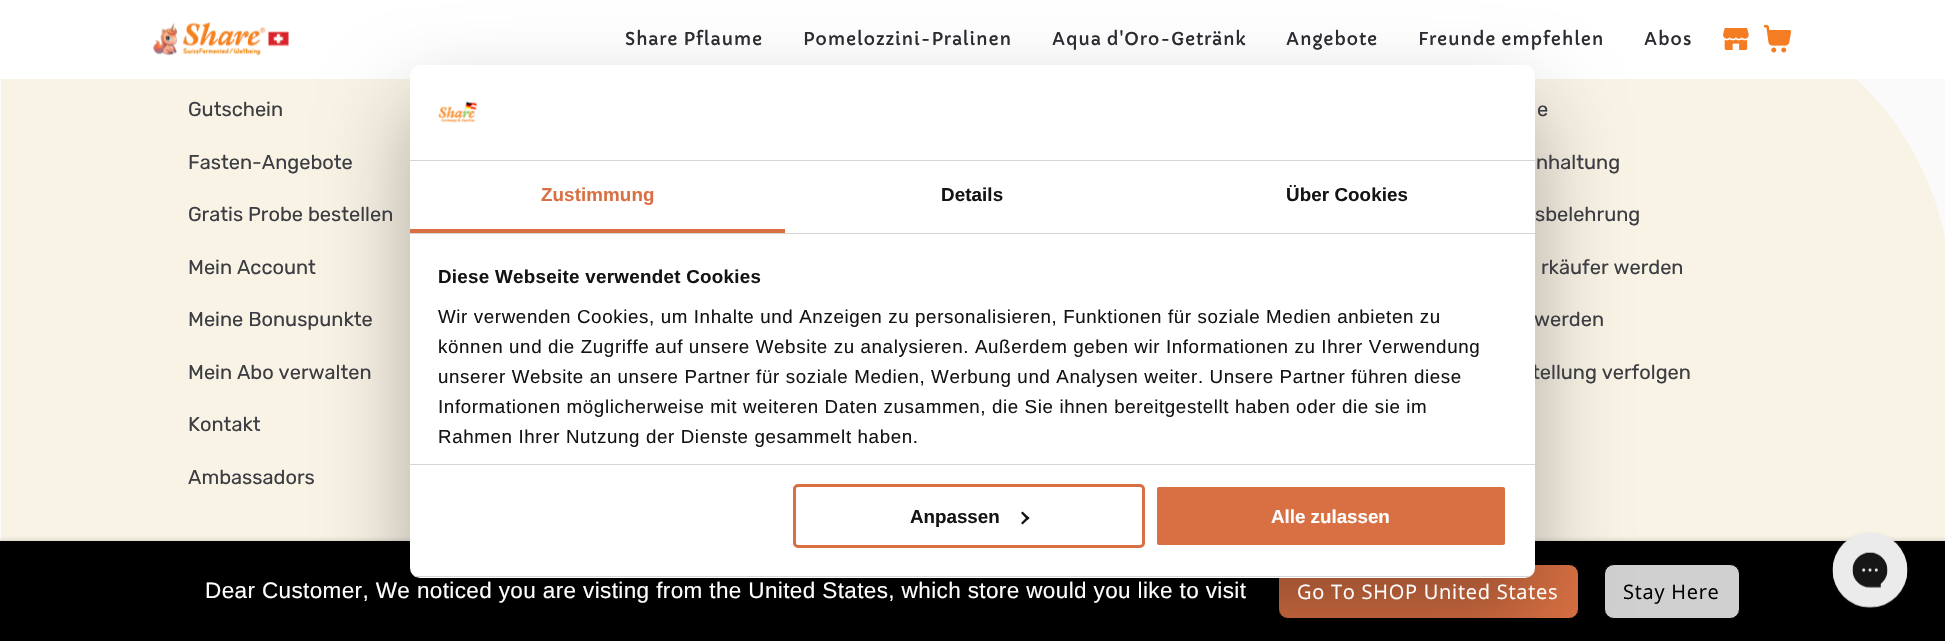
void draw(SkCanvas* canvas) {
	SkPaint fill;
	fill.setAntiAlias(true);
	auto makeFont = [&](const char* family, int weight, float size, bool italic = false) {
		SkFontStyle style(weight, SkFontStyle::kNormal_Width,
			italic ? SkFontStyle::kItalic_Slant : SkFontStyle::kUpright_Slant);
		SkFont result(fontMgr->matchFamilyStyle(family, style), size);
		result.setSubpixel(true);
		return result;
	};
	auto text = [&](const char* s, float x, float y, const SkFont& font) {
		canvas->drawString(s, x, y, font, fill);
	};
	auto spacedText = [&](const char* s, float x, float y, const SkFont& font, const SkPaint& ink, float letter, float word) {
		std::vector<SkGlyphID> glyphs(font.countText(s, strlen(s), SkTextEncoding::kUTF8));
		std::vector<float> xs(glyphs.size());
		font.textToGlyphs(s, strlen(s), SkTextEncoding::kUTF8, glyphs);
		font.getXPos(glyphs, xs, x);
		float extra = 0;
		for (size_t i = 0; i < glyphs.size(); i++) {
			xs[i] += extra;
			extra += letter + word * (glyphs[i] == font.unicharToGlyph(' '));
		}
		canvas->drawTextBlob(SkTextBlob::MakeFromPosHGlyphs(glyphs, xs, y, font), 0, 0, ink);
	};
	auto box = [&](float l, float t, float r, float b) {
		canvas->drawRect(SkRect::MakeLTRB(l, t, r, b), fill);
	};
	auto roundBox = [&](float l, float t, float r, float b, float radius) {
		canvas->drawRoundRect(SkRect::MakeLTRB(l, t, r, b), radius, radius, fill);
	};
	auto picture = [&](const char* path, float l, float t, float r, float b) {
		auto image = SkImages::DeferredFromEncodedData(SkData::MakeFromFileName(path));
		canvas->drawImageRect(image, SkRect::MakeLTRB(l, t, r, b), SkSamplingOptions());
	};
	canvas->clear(0xFFFAFAFA);
	fill.setColor(0xFFF9F3E5);
	canvas->drawPath(SkPathBuilder().moveTo(1, 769).lineTo(1, -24).cubicTo(143, -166, 359, -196, 590, -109).cubicTo(719, -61, 972, 127, 1251, 55).cubicTo(1482, -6, 1534, -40, 1689, -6).cubicTo(1893, 40, 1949, 199, 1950, 281).lineTo(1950, 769).close().detach(), fill);
	fill.setColor(0xFFFFFFFF);
	box(0, 0, 1945, 79);
	picture("image0.png", 153, 22, 289, 56);
	picture("image1.png", 1723, 28, 1749, 50);
	picture("image2.png", 1763, 25, 1792, 53);
	fill.setColor(0x26000000);
	fill.setMaskFilter(SkMaskFilter::MakeBlur(kNormal_SkBlurStyle, 2));
	canvas->drawRect(SkRect::MakeLTRB(-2, 540, 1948, 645), fill);
	fill.setMaskFilter(nullptr);
	fill.setColor(0xFF000000);
	box(0, 541, 1945, 641);
	fill.setColor(0xFFD97043);
	canvas->drawRoundRect(SkRect::MakeLTRB(1278.5f, 564.5f, 1578.5f, 618.5f), 9.5f, 9.5f, fill);
	fill.setStyle(SkPaint::kStroke_Style);
	fill.setStrokeWidth(1);
	fill.setColor(0xFF000000);
	canvas->drawRoundRect(SkRect::MakeLTRB(1278.5f, 564.5f, 1578.5f, 618.5f), 9.5f, 9.5f, fill);
	fill.setStyle(SkPaint::kFill_Style);
	fill.setColor(0xFFD0D0D0);
	canvas->drawRoundRect(SkRect::MakeLTRB(1604.5f, 564.5f, 1739.5f, 618.5f), 9.5f, 9.5f, fill);
	fill.setStyle(SkPaint::kStroke_Style);
	fill.setColor(0xFF000000);
	canvas->drawRoundRect(SkRect::MakeLTRB(1604.5f, 564.5f, 1739.5f, 618.5f), 9.5f, 9.5f, fill);
	fill.setStyle(SkPaint::kFill_Style);
	fill.setColor(0x4D000000);
	fill.setMaskFilter(SkMaskFilter::MakeBlur(kNormal_SkBlurStyle, 42.5f));
	canvas->drawRoundRect(SkRect::MakeLTRB(410, 105, 1535, 618), 10, 10, fill);
	fill.setMaskFilter(nullptr);
	picture("image4.png", 1832, 532, 1908, 608);
	auto font1 = makeFont("Capriola", 400, 17.5f);
	fill.setColor(0xFF2C2D32);
	spacedText("Share Pflaume", 625, 45, font1, fill, 0.75f, 0);
	spacedText("Pomelozzini-Pralinen", 803, 45, font1, fill, 0.75f, 0);
	spacedText("Aqua d'Oro-Getränk", 1052, 45, font1, fill, 0.75f, 0);
	spacedText("Angebote", 1286, 45, font1, fill, 0.75f, 0);
	spacedText("Freunde empfehlen", 1418, 45, font1, fill, 0.75f, 0);
	spacedText("Abos", 1644, 45, font1, fill, 0.75f, 0);
	auto font2 = makeFont("Rubik", 400, 20);
	fill.setColor(0xFF3D3E43);
	text("Gutschein", 188, 116, font2);
	text("Fasten-Angebote", 188, 169, font2);
	text("Gratis Probe bestellen", 188, 221, font2);
	text("Mein Account", 188, 274, font2);
	text("Meine Bonuspunkte", 188, 326, font2);
	text("Mein Abo verwalten", 188, 379, font2);
	text("Kontakt", 188, 431, font2);
	text("Ambassadors", 188, 484, font2);
	text("e", 1537, 116, font2);
	text("nhaltung", 1536, 169, font2);
	text("sbelehrung", 1535, 221, font2);
	text("rkäufer werden", 1541, 274, font2);
	text("werden", 1534, 326, font2);
	text("tellung verfolgen", 1532, 379, font2);
	fill.setColor(0xFFFFFFFF);
	roundBox(410, 65, 1535, 578, 10);
	fill.setColor(0xFFD6D6D6);
	box(410, 160, 1535, 161);
	picture("image3.png", 438, 101, 478, 123);
	box(410, 233, 1535, 234);
	fill.setColor(0xFFD97043);
	box(410, 229, 785, 233);
	auto font3 = makeFont("Liberation Sans", 700, 18.75f);
	spacedText("Zustimmung", 541, 201, font3, fill, 0.1f, 0);
	fill.setColor(0xFF141414);
	spacedText("Details", 941, 201, font3, fill, 0.1f, 0);
	spacedText("Über Cookies", 1286, 201, font3, fill, 0.1f, 0);
	fill.setColor(0xFFD6D6D6);
	box(410, 464, 1535, 465);
	fill.setColor(0xFF141414);
	spacedText("Diese Webseite verwendet Cookies", 438, 283, font3, fill, 0.3f, 0);
	auto font4 = makeFont("Liberation Sans", 400, 18.75f);
	spacedText("Wir verwenden Cookies, um Inhalte und Anzeigen zu personalisieren, Funktionen für soziale Medien anbieten zu", 438, 323, font4, fill, 0.62f, 0);
	spacedText("können und die Zugriffe auf unsere Website zu analysieren. Außerdem geben wir Informationen zu Ihrer Verwendung", 438, 353, font4, fill, 0.62f, 0);
	spacedText("unserer Website an unsere Partner für soziale Medien, Werbung und Analysen weiter. Unsere Partner führen diese", 438, 383, font4, fill, 0.62f, 0);
	spacedText("Informationen möglicherweise mit weiteren Daten zusammen, die Sie ihnen bereitgestellt haben oder die sie im", 438, 413, font4, fill, 0.62f, 0);
	spacedText("Rahmen Ihrer Nutzung der Dienste gesammelt haben.", 438, 443, font4, fill, 0.62f, 0);
	canvas->save();
	canvas->clipPath(SkPathBuilder().moveTo(420, 65).lineTo(1525, 65).cubicTo(1530.5f, 65, 1535, 69.5f, 1535, 75).lineTo(1535, 568).cubicTo(1535, 573.5f, 1530.5f, 578, 1525, 578).lineTo(420, 578).cubicTo(414.5f, 578, 410, 573.5f, 410, 568).lineTo(410, 75).cubicTo(410, 69.5f, 414.5f, 65, 420, 65).close().detach(), true);
	fill.setColor(0xFFD6D6D6);
	box(410, 576, 1535, 577);
	canvas->restore();
	fill.setStyle(SkPaint::kStroke_Style);
	fill.setStrokeWidth(3);
	fill.setColor(0xFFD97043);
	canvas->drawRoundRect(SkRect::MakeLTRB(794.5f, 485.5f, 1143.5f, 546.5f), 3.5f, 3.5f, fill);
	fill.setStyle(SkPaint::kFill_Style);
	fill.setColor(0xFF141414);
	text("Anpassen", 910, 523, font3);
	canvas->drawPath(SkPathBuilder().moveTo(1022.5f, 511.5f).lineTo(1029.5f, 518).lineTo(1027.5f, 520).lineTo(1021, 513).close().detach(), fill);
	canvas->drawPath(SkPathBuilder().moveTo(1027.5f, 516.5f).lineTo(1029.5f, 518).lineTo(1022.5f, 524.5f).lineTo(1021, 523).close().detach(), fill);
	fill.setColor(0xFFD97043);
	canvas->drawRoundRect(SkRect::MakeLTRB(1155.5f, 485.5f, 1506.5f, 546.5f), 3.5f, 3.5f, fill);
	fill.setStyle(SkPaint::kStroke_Style);
	fill.setColor(0xFFFFFFFF);
	canvas->drawRoundRect(SkRect::MakeLTRB(1155.5f, 485.5f, 1506.5f, 546.5f), 3.5f, 3.5f, fill);
	fill.setStyle(SkPaint::kFill_Style);
	text("Alle zulassen", 1271, 523, font3);
	auto font5 = makeFont("Liberation Sans", 400, 22.5f);
	spacedText("Dear Customer, We noticed you are visting from the United States, which store would you like to visit", 205, 598, font5, fill, 0.38f, 0);
	auto font6 = makeFont("Open Sans", 400, 20);
	spacedText("Go To SHOP United States", 1297, 599, font6, fill, 0.75f, 0);
	fill.setColor(0xFF000000);
	spacedText("Stay Here", 1623, 599, font6, fill, 0.75f, 0);
}
